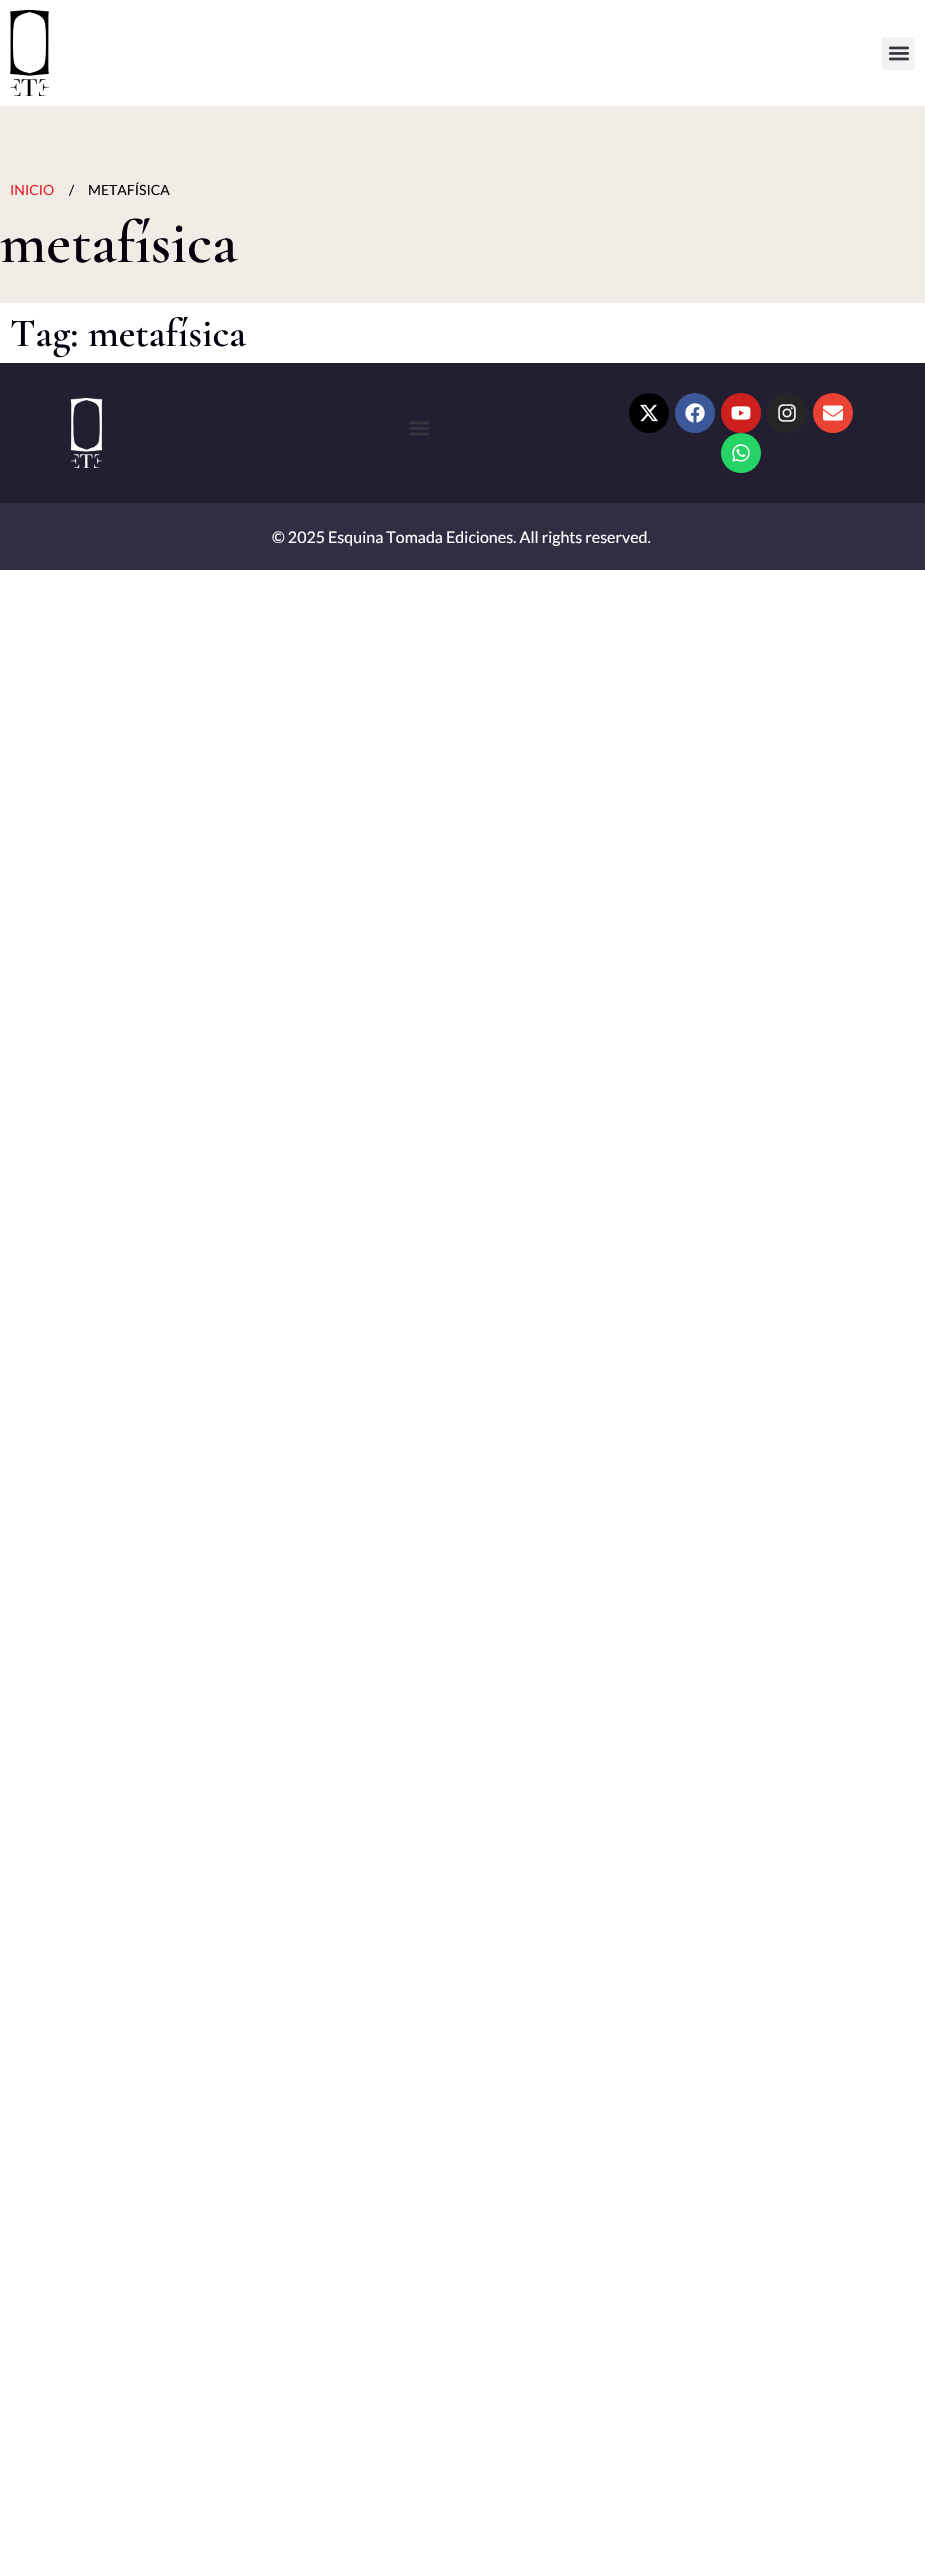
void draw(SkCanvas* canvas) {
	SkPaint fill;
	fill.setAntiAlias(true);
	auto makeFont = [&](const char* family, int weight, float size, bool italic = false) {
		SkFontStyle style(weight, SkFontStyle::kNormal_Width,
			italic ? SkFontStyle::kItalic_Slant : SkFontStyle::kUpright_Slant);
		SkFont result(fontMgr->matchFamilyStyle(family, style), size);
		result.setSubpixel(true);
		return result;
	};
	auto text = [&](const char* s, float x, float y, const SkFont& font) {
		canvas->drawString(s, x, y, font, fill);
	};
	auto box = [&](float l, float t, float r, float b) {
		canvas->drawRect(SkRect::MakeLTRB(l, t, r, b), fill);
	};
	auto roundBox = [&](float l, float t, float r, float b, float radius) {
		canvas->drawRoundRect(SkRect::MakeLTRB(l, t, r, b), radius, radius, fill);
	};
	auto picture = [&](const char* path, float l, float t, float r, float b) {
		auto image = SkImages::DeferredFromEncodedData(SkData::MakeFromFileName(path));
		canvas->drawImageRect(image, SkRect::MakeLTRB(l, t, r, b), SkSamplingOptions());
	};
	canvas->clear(0xFFFFFFFF);
	picture("image0.png", 10, 10, 49, 96);
	fill.setColor(0xFFF2F2F2);
	roundBox(882, 37, 915, 70, 3);
	picture("image1.png", 888, 46, 910, 61);
	fill.setColor(0xFFF0EDE7);
	box(0, 106, 925, 303);
	fill.setColor(0xFF231F30);
	box(0, 363, 925, 503);
	picture("image2.png", 70, 398, 103, 468);
	picture("image3.png", 409, 421, 429, 436);
	fill.setColor(0xFF000000);
	canvas->drawCircle(649, 413, 20, fill);
	picture("image4.png", 640, 404, 658, 422);
	fill.setColor(0xFF3B5998);
	canvas->drawCircle(695, 413, 20, fill);
	picture("image5.png", 685, 403, 705, 423);
	fill.setColor(0xFFCD201F);
	canvas->drawCircle(741, 413, 20, fill);
	picture("image6.png", 731, 406, 751, 420);
	fill.setColor(0xFF262626);
	canvas->drawCircle(787, 413, 20, fill);
	picture("image7.png", 778, 404, 796, 422);
	fill.setColor(0xFFEA4335);
	canvas->drawCircle(833, 413, 20, fill);
	picture("image8.png", 823, 405, 843, 421);
	fill.setColor(0xFF25D366);
	canvas->drawCircle(741, 453, 20, fill);
	picture("image9.png", 732, 444, 750, 462);
	fill.setColor(0xFF322D42);
	box(0, 503, 925, 570);
	auto font1 = makeFont("Lato", 400, 14);
	fill.setColor(0xFFE81D28);
	text("INICIO", 10, 195, font1);
	fill.setColor(0xFF000000);
	text("/", 69, 195, font1);
	fill.setColor(0xFF0A0909);
	text("METAFÍSICA", 88, 195, font1);
	auto font2 = makeFont("Cormorant Garamond", 600, 60);
	fill.setColor(0xFF04000B);
	text("metafísica", 0, 262, font2);
	auto font3 = makeFont("Cormorant Garamond", 600, 40);
	text("Tag: metafísica", 10, 346, font3);
	auto font4 = makeFont("Lato", 400, 16);
	fill.setColor(0xFFFFFFFF);
	text("© 2025 Esquina Tomada Ediciones. All rights reserved.", 272, 543, font4);
}
